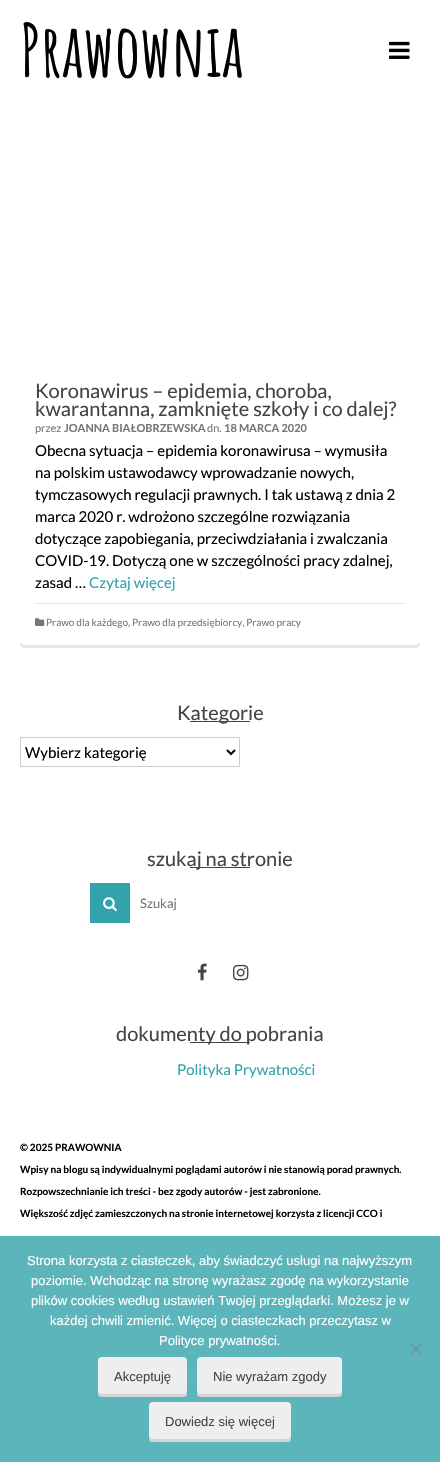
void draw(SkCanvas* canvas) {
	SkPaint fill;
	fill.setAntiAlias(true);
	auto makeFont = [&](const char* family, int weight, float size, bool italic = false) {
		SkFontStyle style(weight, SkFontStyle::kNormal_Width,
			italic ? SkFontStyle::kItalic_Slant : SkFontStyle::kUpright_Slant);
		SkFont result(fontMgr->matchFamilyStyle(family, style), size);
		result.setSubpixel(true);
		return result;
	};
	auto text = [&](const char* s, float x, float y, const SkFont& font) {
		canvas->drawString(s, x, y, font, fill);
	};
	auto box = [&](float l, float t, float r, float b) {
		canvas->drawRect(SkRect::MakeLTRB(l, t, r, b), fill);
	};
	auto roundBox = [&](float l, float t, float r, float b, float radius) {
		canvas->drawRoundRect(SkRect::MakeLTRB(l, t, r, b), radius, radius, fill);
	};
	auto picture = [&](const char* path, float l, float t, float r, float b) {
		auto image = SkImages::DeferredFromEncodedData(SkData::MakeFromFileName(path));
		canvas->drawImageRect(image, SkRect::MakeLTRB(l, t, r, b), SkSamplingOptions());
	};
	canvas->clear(0xFFFFFFFF);
	picture("image0.png", 389, 41, 410, 59);
	fill.setColor(0xFFE6E6E6);
	canvas->drawPath(SkPathBuilder().moveTo(20, 640).lineTo(20, 643).cubicTo(20, 646, 22, 648, 25, 648).lineTo(415, 648).cubicTo(418, 648, 420, 646, 420, 643).lineTo(420, 640).cubicTo(420, 643, 418, 645, 415, 645).lineTo(25, 645).cubicTo(22, 645, 20, 643, 20, 640).close().detach(), fill);
	box(35, 603, 405, 604);
	picture("image1.png", 35, 618, 45, 626);
	fill.setColor(0xFF444444);
	box(190, 721, 250, 722);
	fill.setStyle(SkPaint::kStroke_Style);
	fill.setStrokeWidth(1);
	fill.setColor(0xFFCCCCCC);
	canvas->drawRect(SkRect::MakeLTRB(20.5f, 737.5f, 239.5f, 766.5f), fill);
	fill.setStrokeWidth(2);
	fill.setColor(0xFF000000);
	canvas->drawPath(SkPathBuilder().moveTo(227, 750).lineTo(231, 754).lineTo(235, 750).detach(), fill);
	fill.setStyle(SkPaint::kFill_Style);
	fill.setColor(0xFF444444);
	box(190, 867, 250, 868);
	fill.setColor(0xFF33A2AA);
	box(90, 883, 130, 923);
	picture("image2.png", 103, 897, 117, 912);
	picture("image3.png", 197, 963, 207, 981);
	picture("image4.png", 233, 964, 249, 981);
	fill.setColor(0xFF444444);
	box(190, 1042, 250, 1043);
	fill.setColor(0xCC33A2AA);
	box(0, 1236, 440, 1462);
	fill.setColor(0xFF6E9A9E);
	canvas->drawPath(SkPathBuilder().moveTo(420.5f, 1343.5f).lineTo(422, 1345).lineTo(411.5f, 1355.5f).lineTo(410, 1354).close().detach(), fill);
	canvas->drawPath(SkPathBuilder().moveTo(410, 1345).lineTo(411.5f, 1343.5f).lineTo(422, 1354).lineTo(420.5f, 1355.5f).close().detach(), fill);
	fill.setColor(0xFFEEEEEE);
	roundBox(98, 1357, 187, 1397, 4);
	fill.setColor(0x1A000000);
	canvas->drawPath(SkPathBuilder().moveTo(98, 1390).lineTo(98, 1393).cubicTo(98, 1395, 100, 1397, 102, 1397).lineTo(183, 1397).cubicTo(185, 1397, 187, 1395, 187, 1393).lineTo(187, 1390).cubicTo(187, 1392, 185, 1394, 183, 1394).lineTo(102, 1394).cubicTo(100, 1394, 98, 1392, 98, 1390).close().detach(), fill);
	fill.setColor(0xFFEEEEEE);
	roundBox(197, 1357, 342, 1397, 4);
	fill.setColor(0x1A000000);
	canvas->drawPath(SkPathBuilder().moveTo(197, 1390).lineTo(197, 1393).cubicTo(197, 1395, 199, 1397, 201, 1397).lineTo(338, 1397).cubicTo(340, 1397, 342, 1395, 342, 1393).lineTo(342, 1390).lineTo(341, 1393).lineTo(338, 1394).lineTo(201, 1394).cubicTo(199, 1394, 197, 1392, 197, 1390).close().detach(), fill);
	fill.setColor(0xFFEEEEEE);
	roundBox(149, 1402, 291, 1442, 4);
	fill.setColor(0x1A000000);
	canvas->drawPath(SkPathBuilder().moveTo(149, 1435).lineTo(149, 1438).cubicTo(149, 1440, 151, 1442, 153, 1442).lineTo(287, 1442).cubicTo(289, 1442, 291, 1440, 291, 1438).lineTo(291, 1435).cubicTo(291, 1437, 289, 1439, 287, 1439).lineTo(153, 1439).cubicTo(151, 1439, 149, 1437, 149, 1435).close().detach(), fill);
	auto font1 = makeFont("Amatic SC", 700, 72);
	fill.setColor(0xFF000000);
	text("Prawownia", 20, 77, font1);
	auto font2 = makeFont("Lato", 400, 20);
	fill.setColor(0xFF444444);
	text("Koronawirus – epidemia, choroba,", 35, 398, font2);
	text("kwarantanna, zamknięte szkoły i co dalej?", 35, 416, font2);
	auto font3 = makeFont("Lato", 400, 11);
	fill.setColor(0xFF777777);
	text("przez", 35, 432, font3);
	auto font4 = makeFont("Lato", 700, 11);
	text("JOANNA BIAŁOBRZEWSKA", 64, 432, font4);
	text("dn.", 207, 432, font3);
	text("18 MARCA 2020", 224, 432, font4);
	auto font5 = makeFont("Lato", 400, 15);
	fill.setColor(0xFF000000);
	text("Obecna sytuacja – epidemia koronawirusa – wymusiła", 35, 456, font5);
	text("na polskim ustawodawcy wprowadzanie nowych,", 35, 478, font5);
	text("tymczasowych regulacji prawnych. I tak ustawą z dnia 2", 35, 500, font5);
	text("marca 2020 r. wdrożono szczególne rozwiązania", 35, 522, font5);
	text("dotyczące zapobiegania, przeciwdziałania i zwalczania", 35, 544, font5);
	text("COVID-19. Dotyczą one w szczególności pracy zdalnej,", 35, 566, font5);
	text("zasad …", 35, 588, font5);
	fill.setColor(0xFF33A2AA);
	text("Czytaj więcej", 89, 588, font5);
	auto font6 = makeFont("Lato", 400, 10);
	fill.setColor(0xFF777777);
	text("Prawo dla każdego, Prawo dla przedsiębiorcy, Prawo pracy", 46, 626, font6);
	fill.setColor(0xFF444444);
	text("Kategorie", 177, 720, font2);
	fill.setColor(0xFF000000);
	text("Wybierz kategorię", 25, 758, font5);
	fill.setColor(0xFF444444);
	text("szukaj na stronie", 147, 866, font2);
	auto font7 = makeFont("Lato", 400, 13);
	fill.setColor(0xFF777777);
	text("Szukaj", 140, 908, font7);
	fill.setColor(0xFF444444);
	text("dokumenty do pobrania", 116, 1041, font2);
	fill.setColor(0xFF33A2AA);
	text("Polityka Prywatności", 177, 1075, font5);
	auto font8 = makeFont("Lato", 700, 10);
	fill.setColor(0xFF000000);
	text("© 2025 PRAWOWNIA", 20, 1151, font8);
	text("Wpisy na blogu są indywidualnymi poglądami autorów i nie stanowią porad prawnych.", 20, 1173, font8);
	text("Rozpowszechnianie ich treści - bez zgody autorów - jest zabronione.", 20, 1195, font8);
	text("Większość zdjęć zamieszczonych na stronie internetowej korzysta z licencji CCO i", 20, 1217, font8);
	auto font9 = makeFont("Liberation Sans", 400, 13);
	fill.setColor(0xFFFFFFFF);
	text("Strona korzysta z ciasteczek, aby świadczyć usługi na najwyższym", 27, 1265, font9);
	text("poziomie. Wchodząc na stronę wyrażasz zgodę na wykorzystanie", 31, 1285, font9);
	text("plików cookies według ustawień Twojej przeglądarki. Możesz je w", 31, 1305, font9);
	text("każdej chwili zmienić. Więcej o ciasteczkach przeczytasz w", 50, 1325, font9);
	text("Polityce prywatności.", 159, 1345, font9);
	fill.setColor(0xFF444444);
	text("Akceptuję", 114, 1381, font9);
	text("Nie wyrażam zgody", 213, 1381, font9);
	text("Dowiedz się więcej", 165, 1426, font9);
}
